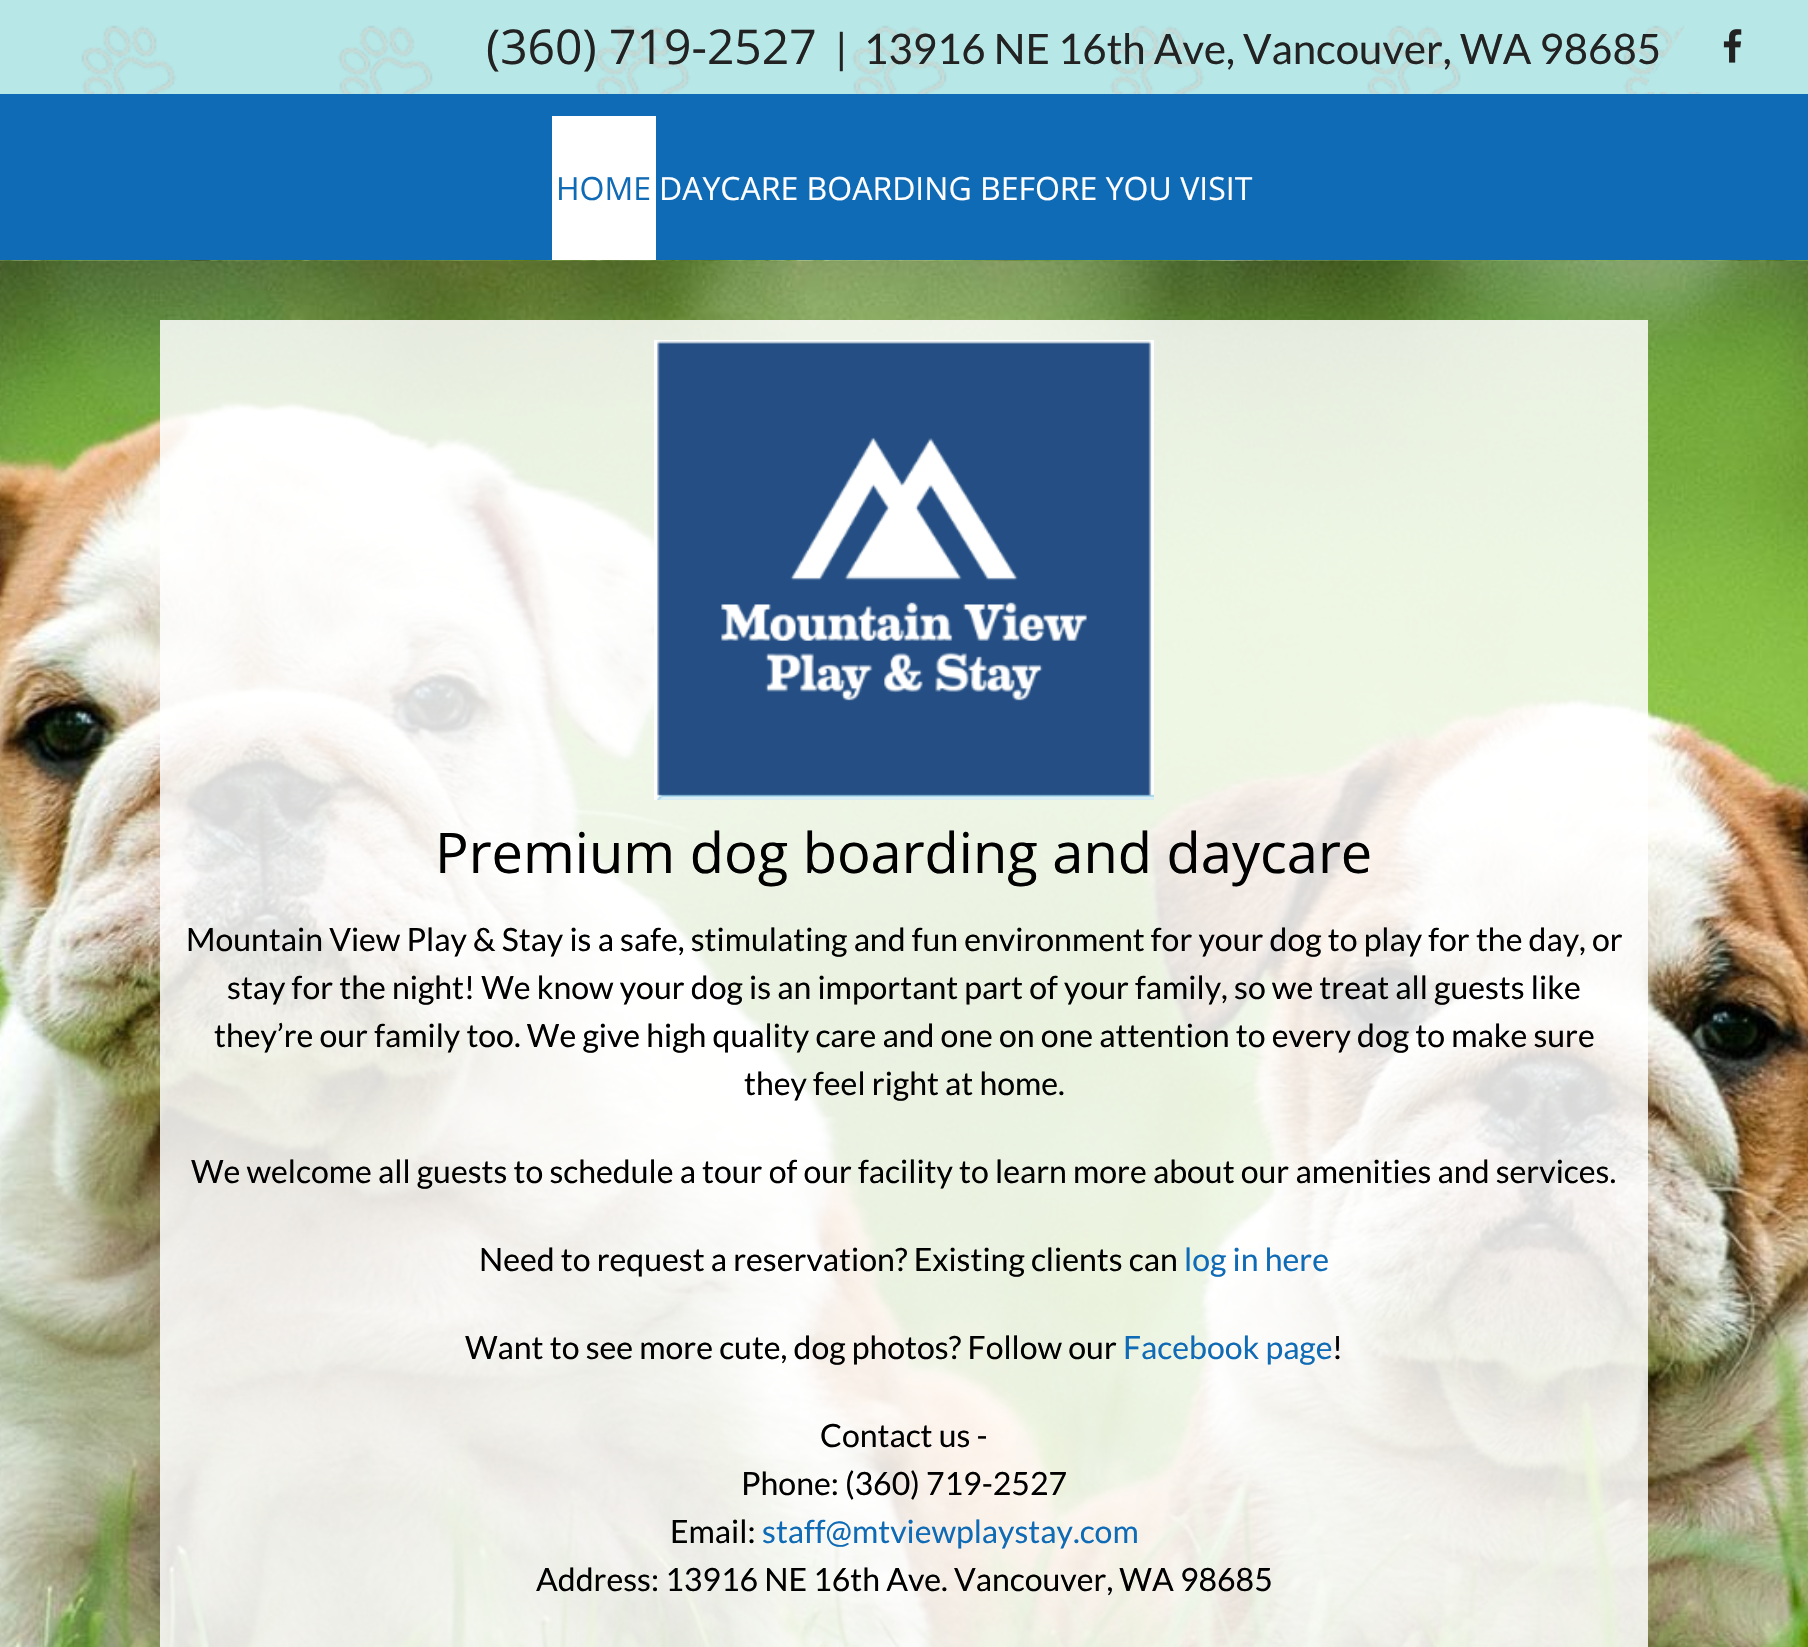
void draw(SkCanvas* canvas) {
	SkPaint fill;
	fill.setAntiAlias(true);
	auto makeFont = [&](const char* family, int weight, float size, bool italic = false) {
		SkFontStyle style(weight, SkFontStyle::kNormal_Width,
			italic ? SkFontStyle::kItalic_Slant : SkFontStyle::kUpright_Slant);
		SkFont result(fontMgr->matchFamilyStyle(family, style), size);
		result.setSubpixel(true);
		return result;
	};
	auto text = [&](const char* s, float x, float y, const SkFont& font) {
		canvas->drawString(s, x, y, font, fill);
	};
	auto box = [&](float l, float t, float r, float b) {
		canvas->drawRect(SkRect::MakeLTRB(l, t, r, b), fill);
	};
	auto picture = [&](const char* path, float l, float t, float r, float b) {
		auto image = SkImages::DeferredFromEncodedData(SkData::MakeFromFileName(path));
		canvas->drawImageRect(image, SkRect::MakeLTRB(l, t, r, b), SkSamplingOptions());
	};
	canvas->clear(0xFFFFFFFF);
	fill.setColor(0xFFB7E7E7);
	box(0, 0, 1808, 94);
	picture("image0.png", 81, 25, 1702, 94);
	picture("image1.png", 1723, 29, 1742, 63);
	fill.setColor(0xFF0F6BB5);
	box(0, 94, 1808, 260);
	fill.setColor(0xFFFFFFFF);
	box(552, 116, 656, 260);
	picture("image2.png", 0, 260, 1808, 1647);
	fill.setColor(0xD9FFFFFF);
	box(160, 320, 1648, 1647);
	picture("image3.png", 654, 340, 1154, 800);
	auto font1 = makeFont("Open Sans", 400, 48);
	fill.setColor(0xFF222222);
	text("(360) 719-2527", 486, 64, font1);
	auto font2 = makeFont("Lato", 400, 42);
	text("|  13916 NE 16th Ave, Vancouver, WA 98685", 835, 64, font2);
	fill.setColor(0xFFB7E7E7);
	canvas->drawPath(SkPathBuilder().moveTo(1702, 0).lineTo(1702, 92).lineTo(1642, 92).close().detach(), fill);
	auto font3 = makeFont("Open Sans", 400, 32);
	fill.setColor(0xFF0F6BB5);
	text("HOME", 556, 200, font3);
	fill.setColor(0xFFFFFFFF);
	text("DAYCARE BOARDING", 659, 200, font3);
	text("BEFORE YOU VISIT", 980, 200, font3);
	auto font4 = makeFont("Open Sans", 400, 56);
	fill.setColor(0xFF000000);
	text("Premium dog boarding and daycare", 435, 873, font4);
	auto font5 = makeFont("Lato", 400, 32);
	text("Mountain View Play & Stay is a safe, stimulating and fun environment for your dog to play for the day, or", 186, 951, font5);
	text("stay for the night! We know your dog is an important part of your family, so we treat all guests like", 227, 999, font5);
	text("they’re our family too. We give high quality care and one on one attention to every dog to make sure", 214, 1047, font5);
	text("they feel right at home.", 744, 1095, font5);
	text("We welcome all guests to schedule a tour of our facility to learn more about our amenities and services.", 191, 1183, font5);
	text("Need to request a reservation? Existing clients can", 479, 1271, font5);
	fill.setColor(0xFF0F6BB5);
	text("log in here", 1184, 1271, font5);
	fill.setColor(0xFF000000);
	text("Want to see more cute, dog photos? Follow our", 465, 1359, font5);
	fill.setColor(0xFF0F6BB5);
	text("Facebook page", 1123, 1359, font5);
	fill.setColor(0xFF000000);
	text("!", 1332, 1359, font5);
	text("Contact us -", 820, 1447, font5);
	text("Phone: (360) 719-2527", 741, 1495, font5);
	text("Email:", 670, 1543, font5);
	fill.setColor(0xFF0F6BB5);
	text("staff@mtviewplaystay.com", 762, 1543, font5);
	fill.setColor(0xFF000000);
	text("Address: 13916 NE 16th Ave. Vancouver, WA 98685", 536, 1591, font5);
}
